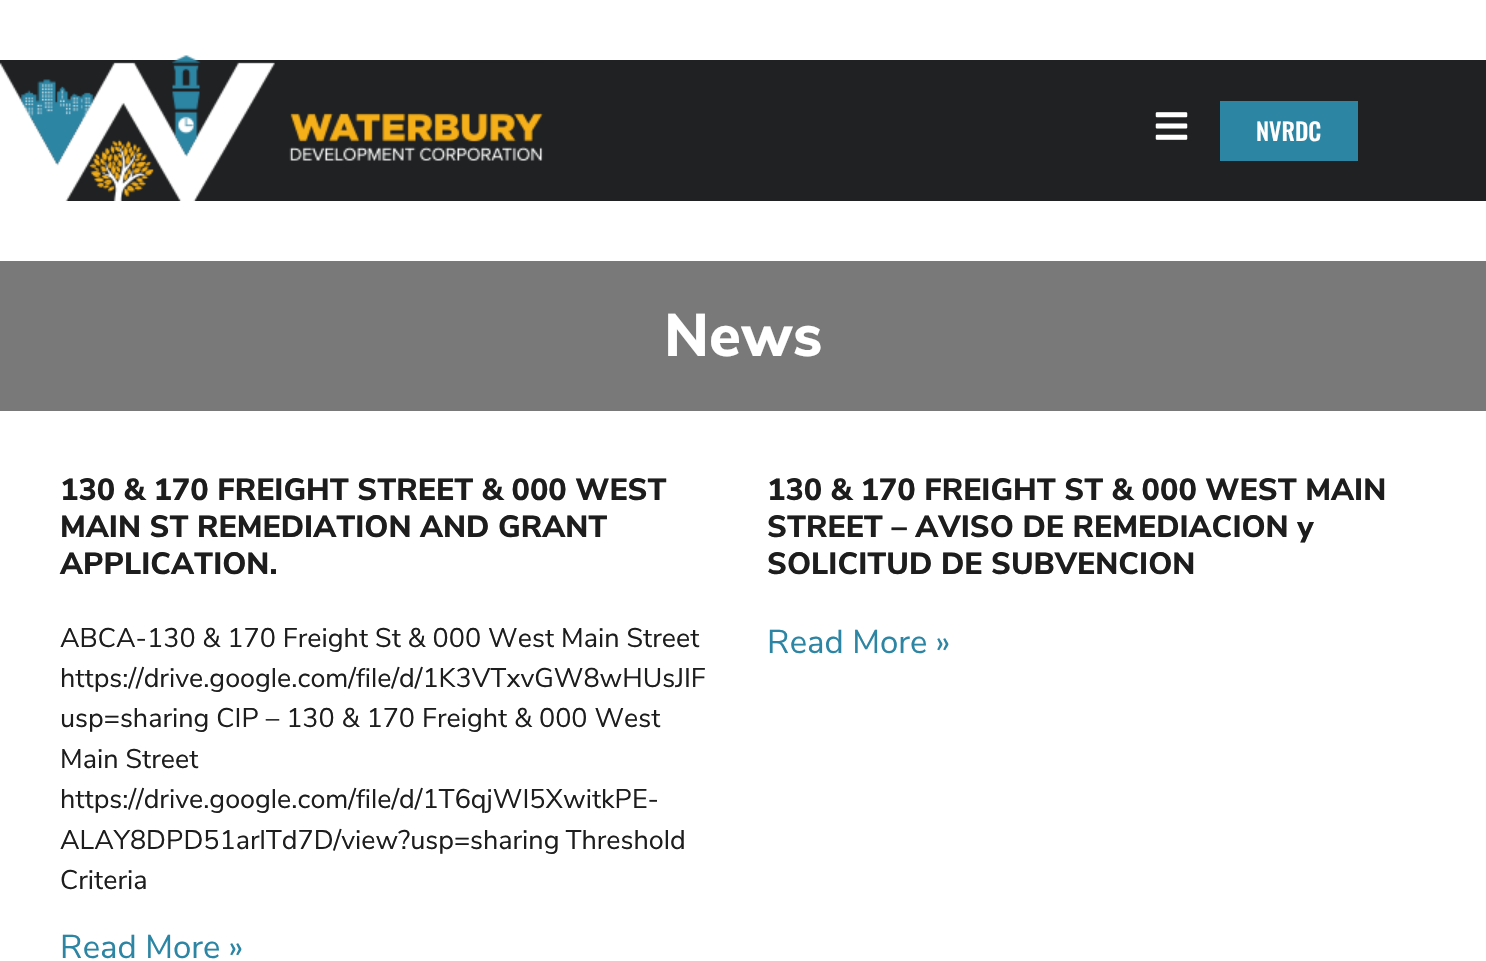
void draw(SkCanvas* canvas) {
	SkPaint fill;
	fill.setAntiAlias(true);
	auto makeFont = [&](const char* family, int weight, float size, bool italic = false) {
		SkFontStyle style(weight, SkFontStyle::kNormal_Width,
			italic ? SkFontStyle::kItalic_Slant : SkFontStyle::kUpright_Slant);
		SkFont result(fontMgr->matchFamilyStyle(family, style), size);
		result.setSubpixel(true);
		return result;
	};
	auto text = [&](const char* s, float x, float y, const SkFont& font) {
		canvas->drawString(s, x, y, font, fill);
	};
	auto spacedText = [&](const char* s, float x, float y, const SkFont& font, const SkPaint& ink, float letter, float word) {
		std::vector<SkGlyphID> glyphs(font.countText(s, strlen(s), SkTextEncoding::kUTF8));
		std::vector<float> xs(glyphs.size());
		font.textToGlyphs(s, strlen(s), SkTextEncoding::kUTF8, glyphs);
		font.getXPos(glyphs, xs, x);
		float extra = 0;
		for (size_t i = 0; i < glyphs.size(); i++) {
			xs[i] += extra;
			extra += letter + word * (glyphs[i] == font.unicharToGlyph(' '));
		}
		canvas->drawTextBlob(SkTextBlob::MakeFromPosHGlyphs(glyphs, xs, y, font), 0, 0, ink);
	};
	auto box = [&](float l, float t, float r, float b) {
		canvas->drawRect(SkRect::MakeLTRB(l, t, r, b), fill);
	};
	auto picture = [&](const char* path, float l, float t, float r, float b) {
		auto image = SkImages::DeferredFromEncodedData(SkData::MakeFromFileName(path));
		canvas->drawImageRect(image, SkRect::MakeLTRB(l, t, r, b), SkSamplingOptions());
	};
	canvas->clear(0xFFFFFFFF);
	fill.setColor(0xFF1F2122);
	box(0, 60, 1486, 201);
	picture("image0.png", 0, 55, 544, 201);
	picture("image1.png", 1155, 112, 1188, 140);
	fill.setColor(0xFF2D85A4);
	box(1220, 101, 1358, 161);
	fill.setColor(0xFF797979);
	box(0, 261, 1486, 411);
	auto font1 = makeFont("Oswald", 500, 24);
	fill.setColor(0xFFFFFFFF);
	text("NVRDC", 1256, 141, font1);
	auto font2 = makeFont("Nunito Sans", 800, 60);
	text("News", 664, 356, font2);
	auto font3 = makeFont("Nunito Sans", 800, 30.65f);
	fill.setColor(0xFF1D1D1D);
	text("130 & 170 FREIGHT STREET & 000 WEST", 60, 500, font3);
	text("MAIN ST REMEDIATION AND GRANT", 60, 537, font3);
	text("APPLICATION.", 60, 574, font3);
	auto font4 = makeFont("Nunito Sans", 400, 26.95f);
	text("ABCA-130 & 170 Freight St & 000 West Main Street", 60, 647, font4);
	text("https://drive.google.com/file/d/1K3VTxvGW8wHUsJIF", 60, 687, font4);
	text("usp=sharing CIP – 130 & 170 Freight & 000 West", 60, 727, font4);
	text("Main Street", 60, 768, font4);
	text("https://drive.google.com/file/d/1T6qjWI5XwitkPE-", 60, 808, font4);
	spacedText("ALAY8DPD51arlTd7D/view?usp=sharing Threshold", 60, 849, font4, fill, 0, -1);
	text("Criteria", 60, 889, font4);
	auto font5 = makeFont("Nunito Sans", 400, 33);
	fill.setColor(0xFF2D85A4);
	text("Read More »", 60, 958, font5);
	fill.setColor(0xFF1D1D1D);
	text("130 & 170 FREIGHT ST & 000 WEST MAIN", 767, 500, font3);
	text("STREET – AVISO DE REMEDIACION y", 767, 537, font3);
	text("SOLICITUD DE SUBVENCION", 767, 574, font3);
	fill.setColor(0xFF2D85A4);
	text("Read More »", 767, 653, font5);
}
